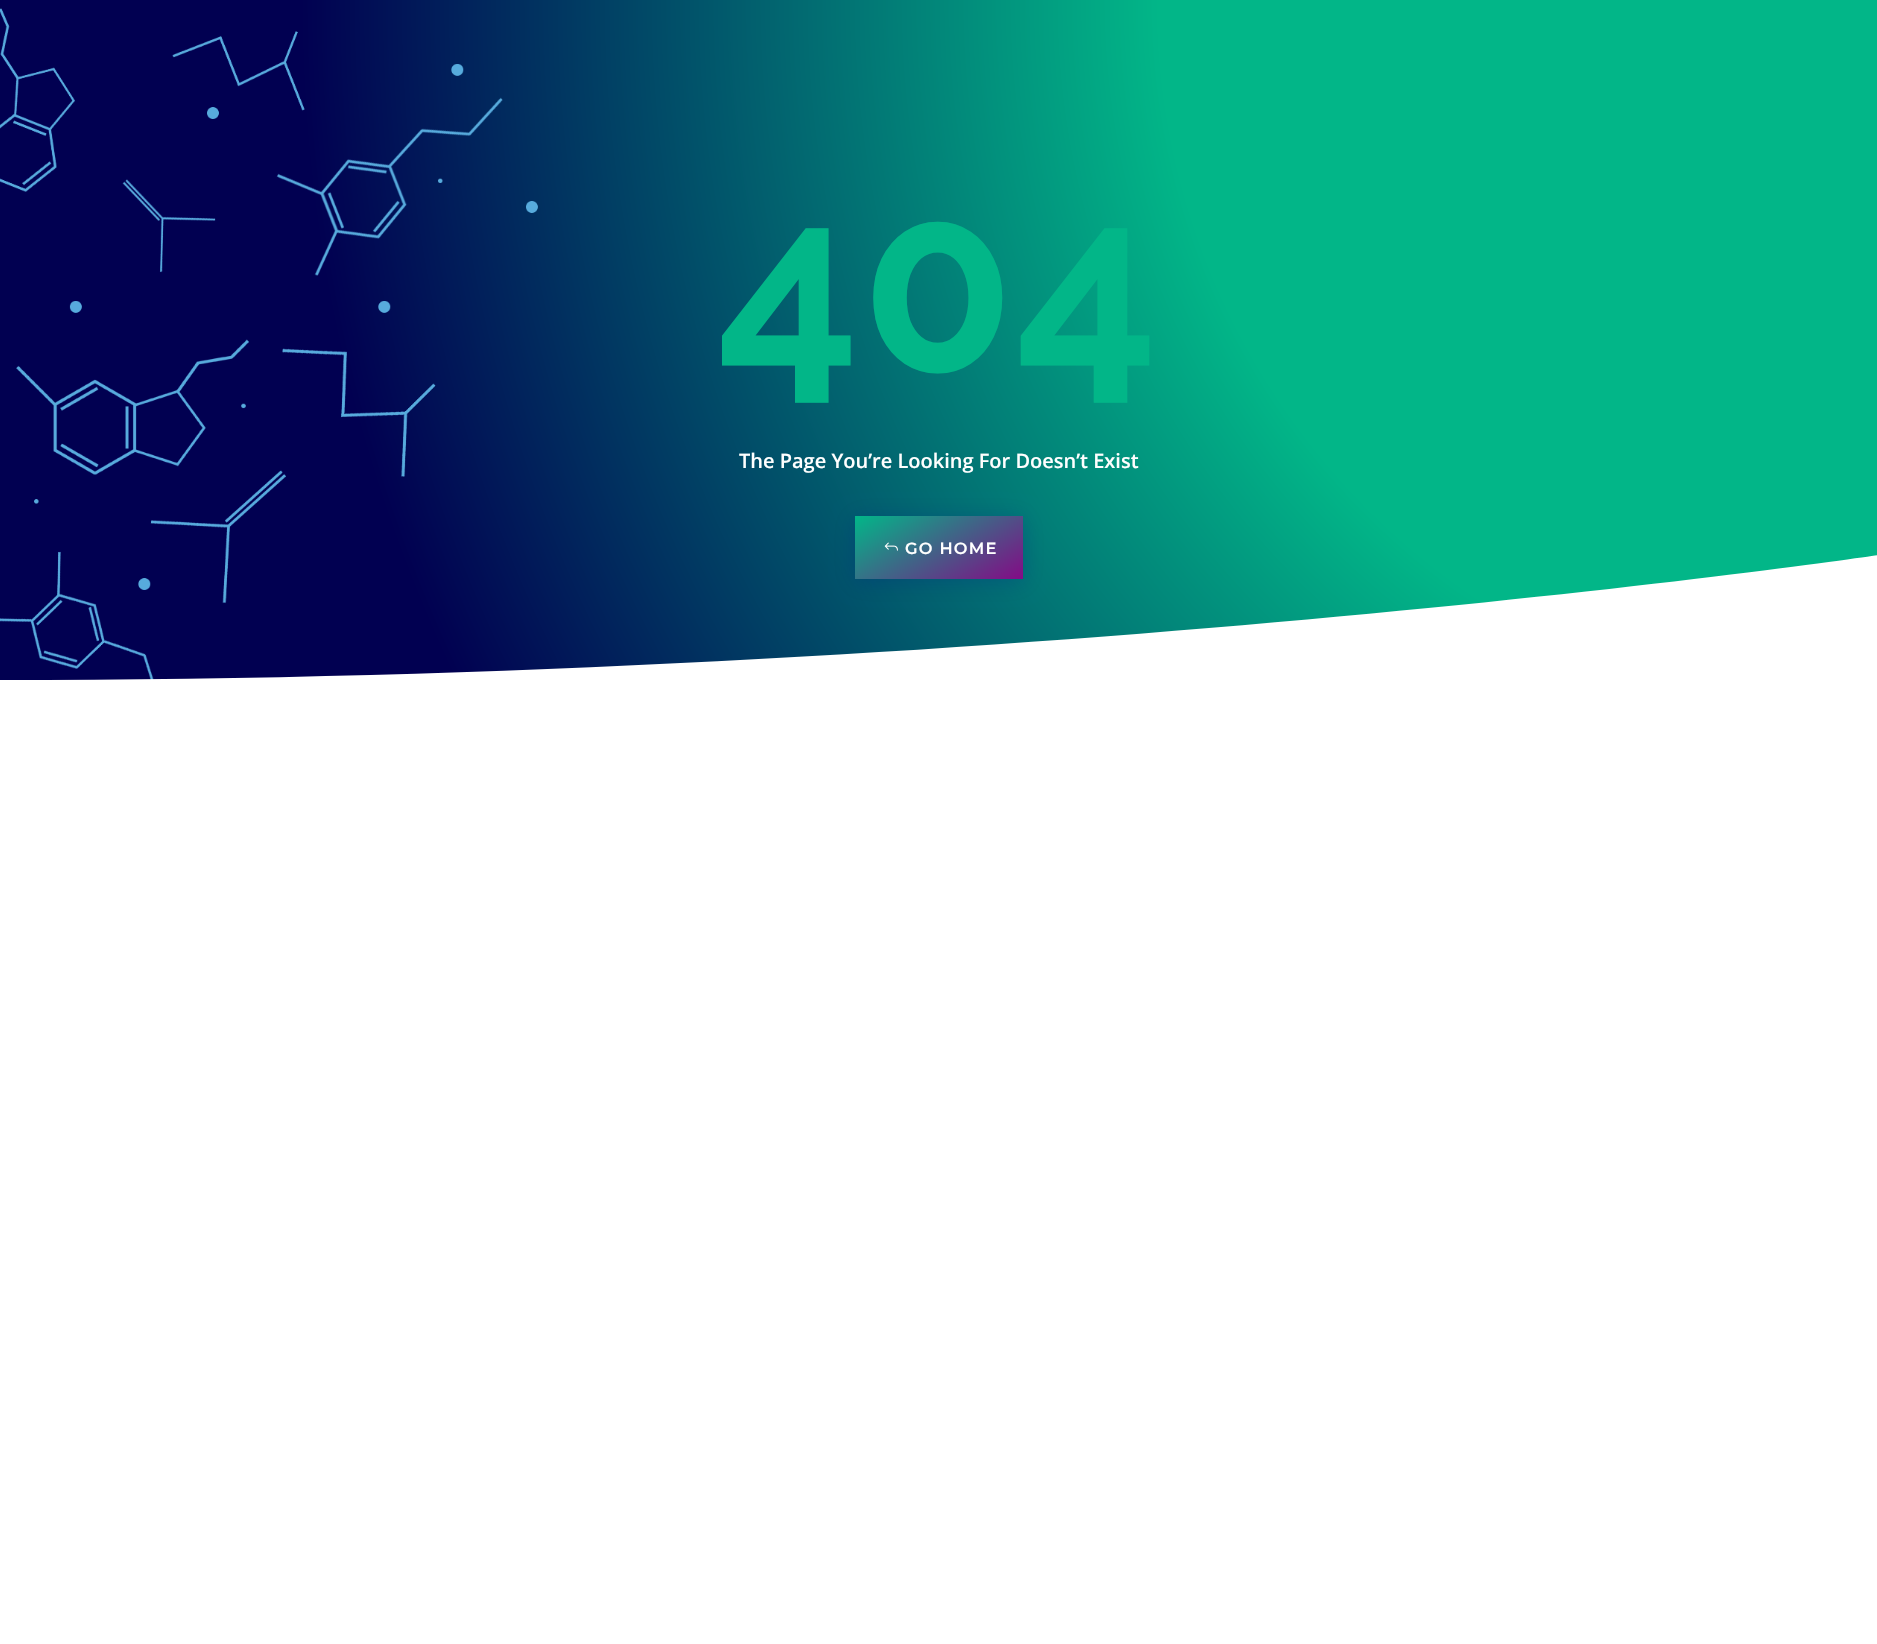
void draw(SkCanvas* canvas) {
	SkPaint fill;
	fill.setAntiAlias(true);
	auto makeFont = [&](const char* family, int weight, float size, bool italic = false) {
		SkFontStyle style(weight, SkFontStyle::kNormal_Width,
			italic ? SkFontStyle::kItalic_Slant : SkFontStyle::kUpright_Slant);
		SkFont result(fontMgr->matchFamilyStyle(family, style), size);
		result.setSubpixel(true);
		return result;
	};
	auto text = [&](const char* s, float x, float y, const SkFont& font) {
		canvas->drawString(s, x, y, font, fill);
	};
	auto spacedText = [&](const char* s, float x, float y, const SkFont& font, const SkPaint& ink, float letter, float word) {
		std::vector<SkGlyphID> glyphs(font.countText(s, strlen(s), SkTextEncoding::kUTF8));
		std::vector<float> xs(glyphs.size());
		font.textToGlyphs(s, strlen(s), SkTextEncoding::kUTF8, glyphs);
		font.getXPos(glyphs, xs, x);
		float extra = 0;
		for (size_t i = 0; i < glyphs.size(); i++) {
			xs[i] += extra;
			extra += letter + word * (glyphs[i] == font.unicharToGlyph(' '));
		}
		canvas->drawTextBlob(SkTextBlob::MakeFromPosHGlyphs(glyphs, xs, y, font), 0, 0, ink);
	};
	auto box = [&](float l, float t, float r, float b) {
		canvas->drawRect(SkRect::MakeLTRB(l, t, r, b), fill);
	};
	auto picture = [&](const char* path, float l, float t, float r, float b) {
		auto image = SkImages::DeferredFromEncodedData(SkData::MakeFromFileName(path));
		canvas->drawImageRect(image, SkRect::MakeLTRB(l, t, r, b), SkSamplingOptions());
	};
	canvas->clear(0xFFFFFFFF);
	{
		const SkColor colors[] = {0xFF02B688, 0xFF010051};
		const float stops[] = {0.36f, 0.79f};
		fill.setShader(SkGradientShader::MakeRadial({1878, 0}, 1997, colors, stops, 2, SkTileMode::kClamp));
		fill.setAlpha(255);
	}
	box(0, 0, 1877, 680);
	picture("image0.png", 0, 8, 538, 680);
	fill.setShader(nullptr);
	fill.setColor(0xFFFFFFFF);
	canvas->drawPath(SkPathBuilder().moveTo(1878, 680).lineTo(0, 680).cubicTo(1037, 680, 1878, 555, 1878, 555).close().detach(), fill);
	fill.setColor(0x3300009D);
	fill.setMaskFilter(SkMaskFilter::MakeBlur(kNormal_SkBlurStyle, 11));
	canvas->drawRect(SkRect::MakeLTRB(855, 519, 1023, 581), fill);
	fill.setMaskFilter(nullptr);
	{
		const SkColor colors[] = {0xFF02B688, 0xFF830C86};
		const float stops[] = {0, 1};
		const SkPoint ends[] = {{903, 488}, {975, 607}};
		fill.setShader(SkGradientShader::MakeLinear(ends, colors, stops, 2, SkTileMode::kClamp));
		fill.setAlpha(255);
	}
	box(855, 516, 1023, 579);
	picture("image1.png", 884, 542, 898, 551);
	auto font1 = makeFont("Raleway", 700, 250);
	fill.setShader(nullptr);
	fill.setColor(0xFF02B688);
	spacedText("404", 717, 371, font1, fill, 1.25f, 0);
	auto font2 = makeFont("Open Sans", 600, 20);
	fill.setColor(0xFFFFFFFF);
	text("The Page You’re Looking For Doesn’t Exist", 739, 468, font2);
	auto font3 = makeFont("Montserrat", 600, 16.25f);
	spacedText("GO HOME", 905, 554, font3, fill, 1.25f, 0);
}
